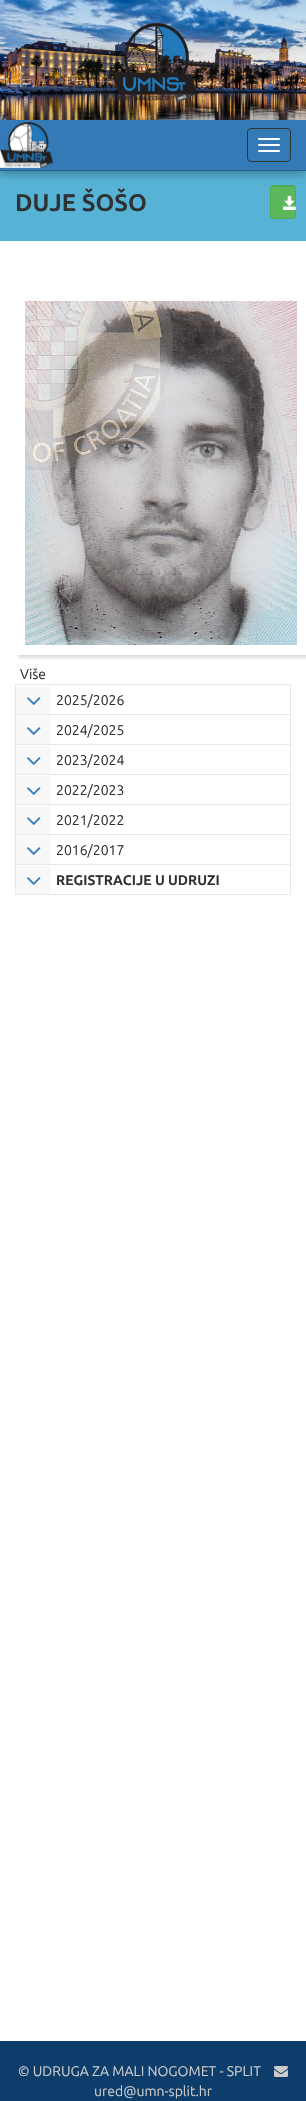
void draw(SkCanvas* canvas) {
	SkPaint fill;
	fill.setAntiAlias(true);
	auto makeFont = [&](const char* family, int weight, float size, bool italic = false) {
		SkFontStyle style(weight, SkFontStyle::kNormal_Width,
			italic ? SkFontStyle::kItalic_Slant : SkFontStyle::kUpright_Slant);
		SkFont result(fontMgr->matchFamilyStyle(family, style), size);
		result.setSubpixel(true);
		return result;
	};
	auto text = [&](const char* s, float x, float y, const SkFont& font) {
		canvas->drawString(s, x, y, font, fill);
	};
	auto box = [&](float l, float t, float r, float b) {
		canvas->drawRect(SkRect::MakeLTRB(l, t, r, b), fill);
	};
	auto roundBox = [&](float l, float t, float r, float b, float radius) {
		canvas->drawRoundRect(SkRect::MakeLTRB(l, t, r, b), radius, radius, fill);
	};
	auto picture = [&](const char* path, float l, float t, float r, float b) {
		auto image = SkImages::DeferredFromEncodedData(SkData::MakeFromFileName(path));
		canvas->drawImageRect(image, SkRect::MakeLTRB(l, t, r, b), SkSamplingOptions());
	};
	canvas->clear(0xFFFFFFFF);
	fill.setColor(0xFF56B3D6);
	box(0, 0, 306, 241);
	picture("image0.png", 0, 0, 306, 120);
	fill.setColor(0xFF5CB85C);
	roundBox(270, 185, 296, 219, 4);
	fill.setColor(0xFF55AA55);
	canvas->drawPath(SkPathBuilder().moveTo(274, 187).lineTo(292, 187).cubicTo(294, 187, 295, 188, 295, 190).cubicTo(295, 185.5f, 292.5f, 186, 289, 186).lineTo(277, 186).cubicTo(273.5f, 186, 271, 185.5f, 271, 190).cubicTo(271, 188, 272, 187, 274, 187).close().detach(), fill);
	fill.setStyle(SkPaint::kStroke_Style);
	fill.setStrokeWidth(1);
	fill.setColor(0xFF4CAE4C);
	canvas->drawRoundRect(SkRect::MakeLTRB(270.5f, 185.5f, 295.5f, 218.5f), 3.5f, 3.5f, fill);
	fill.setStyle(SkPaint::kFill_Style);
	fill.setColor(0x40000000);
	fill.setMaskFilter(SkMaskFilter::MakeBlur(kNormal_SkBlurStyle, 4));
	canvas->drawRect(SkRect::MakeLTRB(0, 124, 306, 175), fill);
	fill.setMaskFilter(nullptr);
	fill.setColor(0xFF337AB7);
	box(0, 120, 306, 170);
	fill.setColor(0xFF286090);
	box(0, 170, 306, 171);
	picture("image1.png", 0, 122, 53, 168);
	fill.setStyle(SkPaint::kStroke_Style);
	fill.setColor(0xFF333333);
	canvas->drawRoundRect(SkRect::MakeLTRB(247.5f, 128.5f, 290.5f, 161.5f), 3.5f, 3.5f, fill);
	fill.setStyle(SkPaint::kFill_Style);
	fill.setColor(0xFFFFFFFF);
	roundBox(258, 138, 280, 140, 1);
	roundBox(258, 144, 280, 146, 1);
	roundBox(258, 150, 280, 152, 1);
	picture("image2.png", 283, 196, 296, 210);
	canvas->save();
	canvas->clipRect(SkRect::MakeLTRB(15, 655, 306, 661));
	fill.setColor(0xFFDDDDDD);
	fill.setMaskFilter(SkMaskFilter::MakeBlur(kNormal_SkBlurStyle, 1.5f));
	canvas->drawRect(SkRect::MakeLTRB(18, 294, 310, 658), fill);
	fill.setMaskFilter(nullptr);
	canvas->restore();
	picture("image3.png", 25, 301, 297, 645);
	fill.setColor(0xFFE8E8E8);
	box(15, 684, 291, 685);
	fill.setColor(0xFFF8F8F8);
	box(16, 686, 51, 714);
	fill.setColor(0xFFE8E8E8);
	box(15, 714, 51, 715);
	box(15, 685, 16, 715);
	picture("image4.png", 27, 697, 41, 705);
	box(290, 685, 291, 895);
	box(51, 714, 291, 715);
	fill.setColor(0xFFF8F8F8);
	box(16, 716, 51, 744);
	fill.setColor(0xFFE8E8E8);
	box(15, 744, 291, 745);
	box(15, 715, 16, 745);
	picture("image4.png", 27, 727, 41, 735);
	fill.setColor(0xFFF8F8F8);
	box(16, 746, 51, 774);
	fill.setColor(0xFFE8E8E8);
	box(15, 774, 291, 775);
	box(15, 745, 16, 775);
	picture("image4.png", 27, 757, 41, 765);
	fill.setColor(0xFFF8F8F8);
	box(16, 776, 51, 804);
	fill.setColor(0xFFE8E8E8);
	box(15, 804, 291, 805);
	box(15, 775, 16, 805);
	picture("image4.png", 27, 787, 41, 795);
	fill.setColor(0xFFF8F8F8);
	box(16, 806, 51, 834);
	fill.setColor(0xFFE8E8E8);
	box(15, 834, 291, 835);
	box(15, 805, 16, 835);
	picture("image4.png", 27, 817, 41, 825);
	fill.setColor(0xFFF8F8F8);
	box(16, 836, 51, 864);
	fill.setColor(0xFFE8E8E8);
	box(15, 864, 291, 865);
	box(15, 835, 16, 865);
	picture("image4.png", 27, 847, 41, 855);
	fill.setColor(0xFFF8F8F8);
	box(16, 866, 51, 894);
	fill.setColor(0xFFE8E8E8);
	box(15, 894, 291, 895);
	box(15, 865, 16, 895);
	picture("image4.png", 27, 877, 41, 885);
	fill.setColor(0xFF0D3D6B);
	box(0, 2041, 306, 2101);
	picture("image5.png", 274, 2066, 288, 2077);
	auto font1 = makeFont("Ubuntu", 700, 24);
	fill.setColor(0xFF2E3235);
	text("DUJE ŠOŠO", 15, 211, font1);
	auto font2 = makeFont("Ubuntu", 400, 14);
	text("Više", 20, 679, font2);
	text("2025/2026", 56, 705, font2);
	text("2024/2025", 56, 735, font2);
	text("2023/2024", 56, 765, font2);
	text("2022/2023", 56, 795, font2);
	text("2021/2022", 56, 825, font2);
	text("2016/2017", 56, 855, font2);
	auto font3 = makeFont("Ubuntu", 700, 14);
	text("REGISTRACIJE U UDRUZI", 56, 885, font3);
	fill.setColor(0xFFCCCCCC);
	text("© UDRUGA ZA MALI NOGOMET - SPLIT", 18, 2076, font2);
	text("ured@umn-split.hr", 94, 2096, font2);
}
